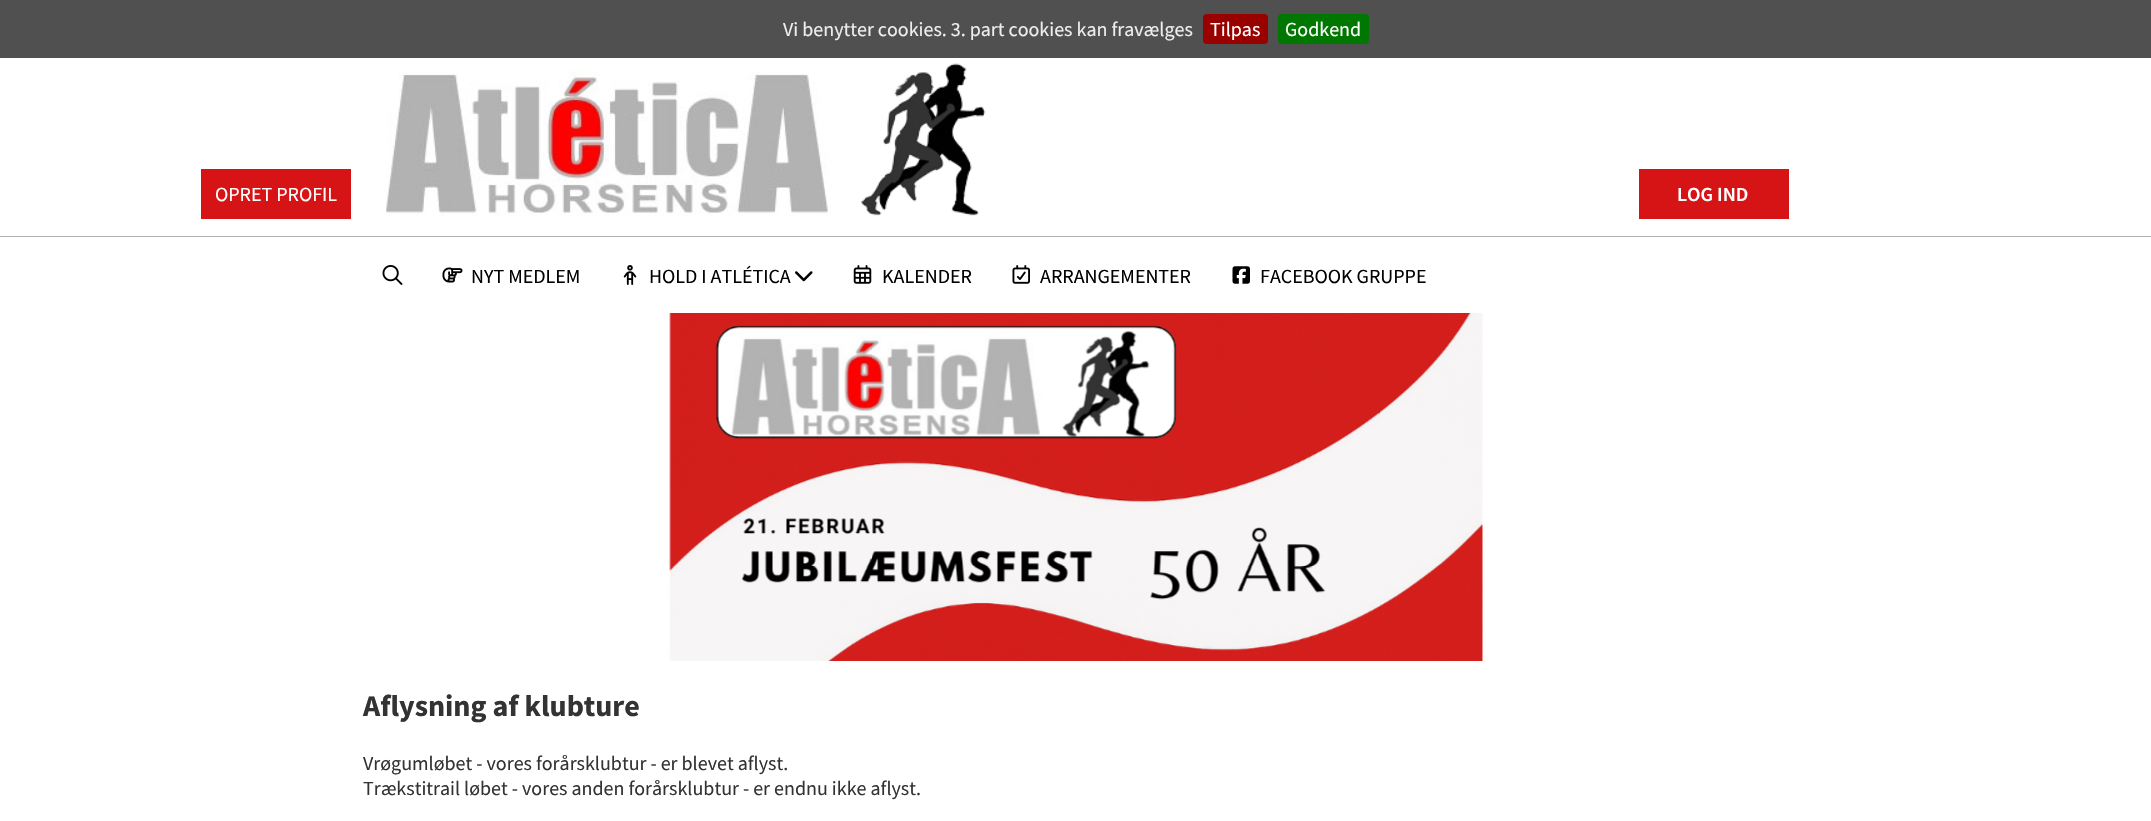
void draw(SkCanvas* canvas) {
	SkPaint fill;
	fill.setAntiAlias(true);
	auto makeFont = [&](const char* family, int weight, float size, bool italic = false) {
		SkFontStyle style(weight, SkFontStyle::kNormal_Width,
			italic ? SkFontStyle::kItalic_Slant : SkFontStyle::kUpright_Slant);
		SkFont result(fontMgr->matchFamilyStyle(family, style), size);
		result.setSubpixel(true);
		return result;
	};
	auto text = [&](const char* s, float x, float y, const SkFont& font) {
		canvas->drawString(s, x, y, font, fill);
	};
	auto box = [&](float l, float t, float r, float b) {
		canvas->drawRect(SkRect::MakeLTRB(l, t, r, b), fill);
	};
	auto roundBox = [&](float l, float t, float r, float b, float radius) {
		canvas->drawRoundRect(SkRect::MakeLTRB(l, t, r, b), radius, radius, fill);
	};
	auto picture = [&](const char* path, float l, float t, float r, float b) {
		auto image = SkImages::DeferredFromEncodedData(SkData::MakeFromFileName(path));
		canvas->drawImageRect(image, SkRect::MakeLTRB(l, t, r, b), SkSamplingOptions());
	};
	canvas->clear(0xFFFFFFFF);
	fill.setColor(0xFF505050);
	box(0, 0, 2151, 58);
	fill.setColor(0xFF990000);
	roundBox(1203, 14, 1268, 44, 4);
	fill.setColor(0xFF007700);
	roundBox(1278, 14, 1369, 44, 4);
	fill.setColor(0xFFB2B2B2);
	box(0, 236, 2151, 237);
	fill.setColor(0xFFD61415);
	box(201, 169, 351, 219);
	box(1639, 169, 1789, 219);
	picture("image0.png", 382, 265, 403, 285);
	picture("image1.png", 442, 267, 463, 283);
	picture("image2.png", 623, 265, 637, 285);
	picture("image3.png", 795, 271, 813, 282);
	picture("image4.png", 853, 265, 872, 284);
	picture("image5.png", 1012, 265, 1030, 284);
	picture("image6.png", 1232, 266, 1250, 284);
	picture("image7.png", 386, 63, 986, 216);
	picture("image8.png", 669, 313, 1483, 661);
	auto font1 = makeFont("Source Sans Pro", 400, 20);
	fill.setColor(0xFFEEEEEE);
	text("Vi benytter cookies. 3. part cookies kan fravælges", 783, 36, font1);
	fill.setColor(0xFFFFFFFF);
	text("Tilpas", 1210, 36, font1);
	text("Godkend", 1285, 36, font1);
	text("OPRET PROFIL", 215, 201, font1);
	auto font2 = makeFont("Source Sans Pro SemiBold", 600, 20);
	text("LOG IND", 1677, 201, font2);
	fill.setColor(0xFF000000);
	text("NYT MEDLEM", 471, 283, font1);
	text("HOLD I ATLÉTICA", 649, 283, font1);
	text("KALENDER", 882, 283, font1);
	text("ARRANGEMENTER", 1040, 283, font1);
	text("FACEBOOK GRUPPE", 1260, 283, font1);
	auto font3 = makeFont("Source Sans Pro", 700, 30);
	fill.setColor(0xFF333333);
	text("Aflysning af klubture", 363, 716, font3);
	text("Vrøgumløbet - vores forårsklubtur - er blevet aflyst.", 363, 770, font1);
	text("Trækstitrail løbet - vores anden forårsklubtur - er endnu ikke aflyst.", 363, 795, font1);
}
